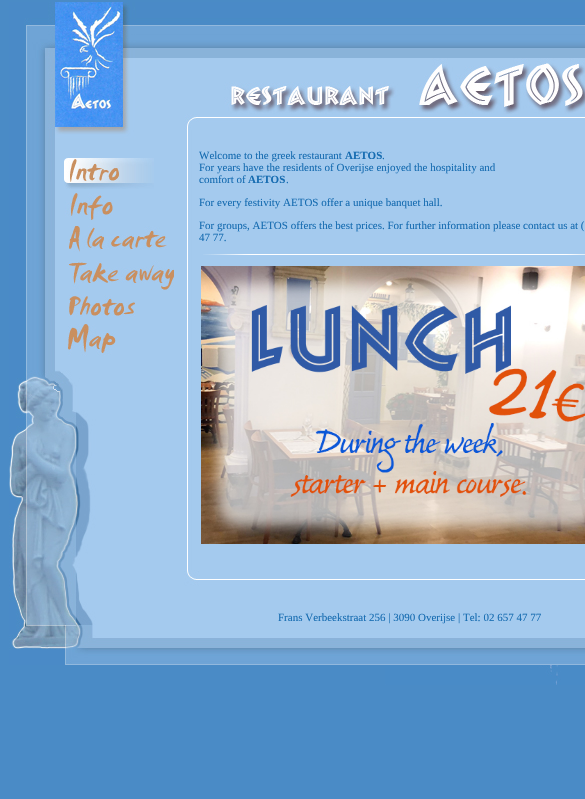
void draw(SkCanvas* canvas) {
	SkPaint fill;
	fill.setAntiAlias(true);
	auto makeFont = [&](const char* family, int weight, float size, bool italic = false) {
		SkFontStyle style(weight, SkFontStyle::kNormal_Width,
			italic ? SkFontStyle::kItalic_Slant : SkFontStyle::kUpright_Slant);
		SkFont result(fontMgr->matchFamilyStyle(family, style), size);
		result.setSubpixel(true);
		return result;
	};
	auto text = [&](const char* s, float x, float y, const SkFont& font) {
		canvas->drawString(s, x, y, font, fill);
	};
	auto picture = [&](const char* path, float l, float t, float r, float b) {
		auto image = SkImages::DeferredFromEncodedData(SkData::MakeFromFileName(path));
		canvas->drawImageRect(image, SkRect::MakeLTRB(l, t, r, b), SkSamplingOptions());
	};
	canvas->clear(0xFF4A8BC6);
	picture("image0.png", 385, 665, 585, 685);
	picture("image1.png", 9, 2, 585, 665);
	picture("image2.png", 64, 158, 154, 189);
	picture("image3.png", 65, 193, 113, 220);
	picture("image4.png", 69, 226, 167, 252);
	picture("image5.png", 69, 261, 174, 290);
	picture("image6.png", 69, 295, 135, 317);
	picture("image7.png", 68, 324, 116, 356);
	picture("image8.png", 203, 254, 585, 255);
	picture("image9.png", 201, 266, 585, 544);
	auto font1 = makeFont("Liberation Serif", 400, 11);
	fill.setColor(0xFF166CB1);
	text("Welcome to the greek restaurant", 199, 159, font1);
	auto font2 = makeFont("Liberation Serif", 700, 11);
	text("AETOS", 345, 159, font2);
	text(".", 382, 159, font1);
	text("For years have the residents of Overijse enjoyed the hospitality and", 199, 171, font1);
	text("comfort of", 199, 183, font1);
	text("AETOS", 248, 183, font2);
	text(".", 286, 183, font1);
	text("For every festivity AETOS offer a unique banquet hall.", 199, 206, font1);
	text("For groups, AETOS offers the best prices. For further information please contact us at (", 199, 229, font1);
	text("47 77.", 199, 241, font1);
	text("Frans Verbeekstraat 256 | 3090 Overijse | Tel: 02 657 47 77", 278, 621, font1);
}
